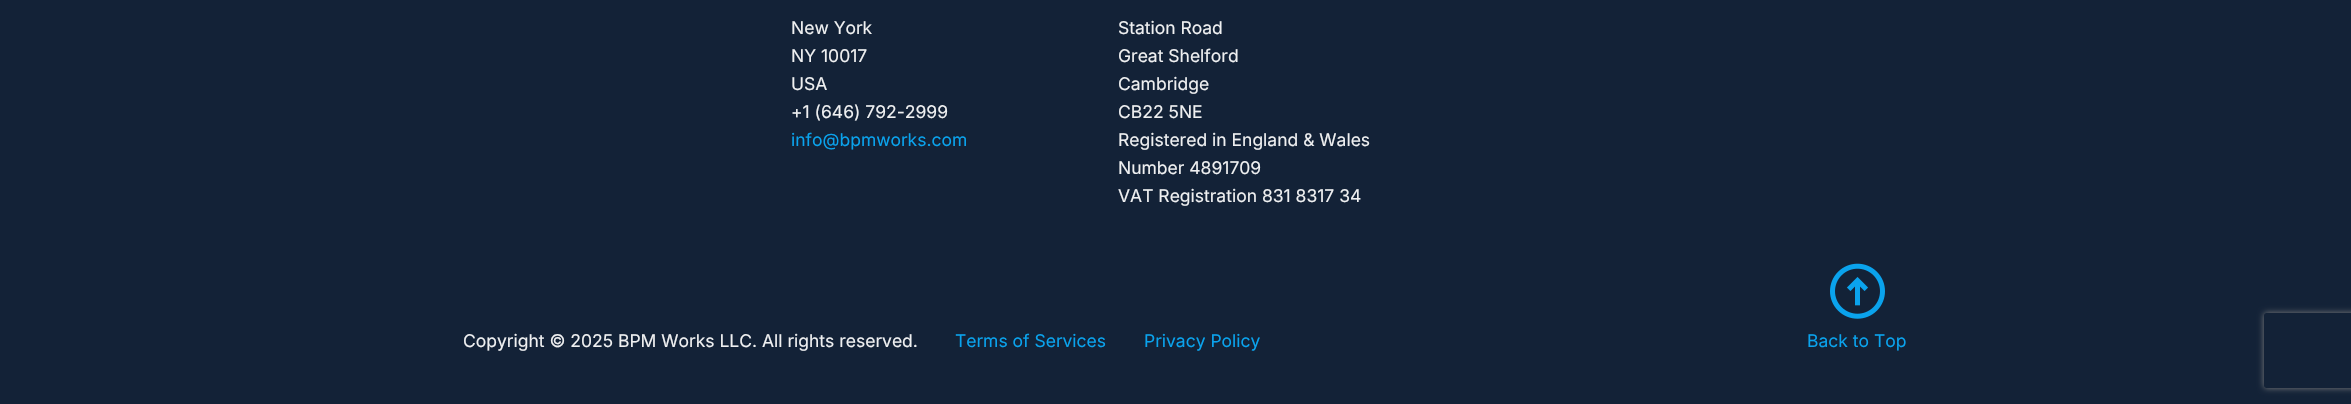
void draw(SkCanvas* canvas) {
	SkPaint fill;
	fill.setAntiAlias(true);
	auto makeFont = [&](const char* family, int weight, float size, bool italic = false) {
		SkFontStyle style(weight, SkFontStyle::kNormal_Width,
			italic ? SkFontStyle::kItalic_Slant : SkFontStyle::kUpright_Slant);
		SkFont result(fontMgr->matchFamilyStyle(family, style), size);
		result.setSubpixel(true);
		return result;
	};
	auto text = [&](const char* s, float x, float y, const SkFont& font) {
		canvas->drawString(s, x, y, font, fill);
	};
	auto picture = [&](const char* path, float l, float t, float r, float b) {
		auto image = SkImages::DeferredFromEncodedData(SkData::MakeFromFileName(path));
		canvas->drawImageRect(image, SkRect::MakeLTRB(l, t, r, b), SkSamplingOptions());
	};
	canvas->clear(0xFF132237);
	picture("image0.png", 1830, 263, 1885, 319);
	canvas->save();
	canvas->clipPath(SkPathBuilder(SkPathFillType::kEvenOdd).moveTo(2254, 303).lineTo(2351, 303).lineTo(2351, 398).lineTo(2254, 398).close().moveTo(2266.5f, 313).lineTo(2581.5f, 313).cubicTo(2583, 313, 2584, 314, 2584, 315.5f).lineTo(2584, 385.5f).cubicTo(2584, 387, 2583, 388, 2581.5f, 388).lineTo(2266.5f, 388).cubicTo(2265, 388, 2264, 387, 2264, 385.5f).lineTo(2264, 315.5f).cubicTo(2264, 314, 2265, 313, 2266.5f, 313).close().detach(), true);
	fill.setColor(0xFF808080);
	fill.setMaskFilter(SkMaskFilter::MakeBlur(kNormal_SkBlurStyle, 3));
	canvas->drawRoundRect(SkRect::MakeLTRB(2264, 313, 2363, 388), 2.5f, 2.5f, fill);
	fill.setMaskFilter(nullptr);
	canvas->restore();
	auto font1 = makeFont("Inter", 400, 17.5f);
	fill.setColor(0xFFEFF0F1);
	text("New York", 791, 34, font1);
	text("NY 10017", 791, 62, font1);
	text("USA", 791, 90, font1);
	text("+1 (646) 792-2999", 791, 118, font1);
	fill.setColor(0xFF0AA3ED);
	text("info@bpmworks.com", 791, 146, font1);
	fill.setColor(0xFFEFF0F1);
	text("Station Road", 1118, 34, font1);
	text("Great Shelford", 1118, 62, font1);
	text("Cambridge", 1118, 90, font1);
	text("CB22 5NE", 1118, 118, font1);
	text("Registered in England & Wales", 1118, 146, font1);
	text("Number 4891709", 1118, 174, font1);
	text("VAT Registration 831 8317 34", 1118, 202, font1);
	text("Copyright © 2025 BPM Works LLC. All rights reserved.", 463, 347, font1);
	fill.setColor(0xFF0AA3ED);
	text("Terms of Services", 955, 347, font1);
	text("Privacy Policy", 1144, 347, font1);
	text("Back to Top", 1807, 347, font1);
}
